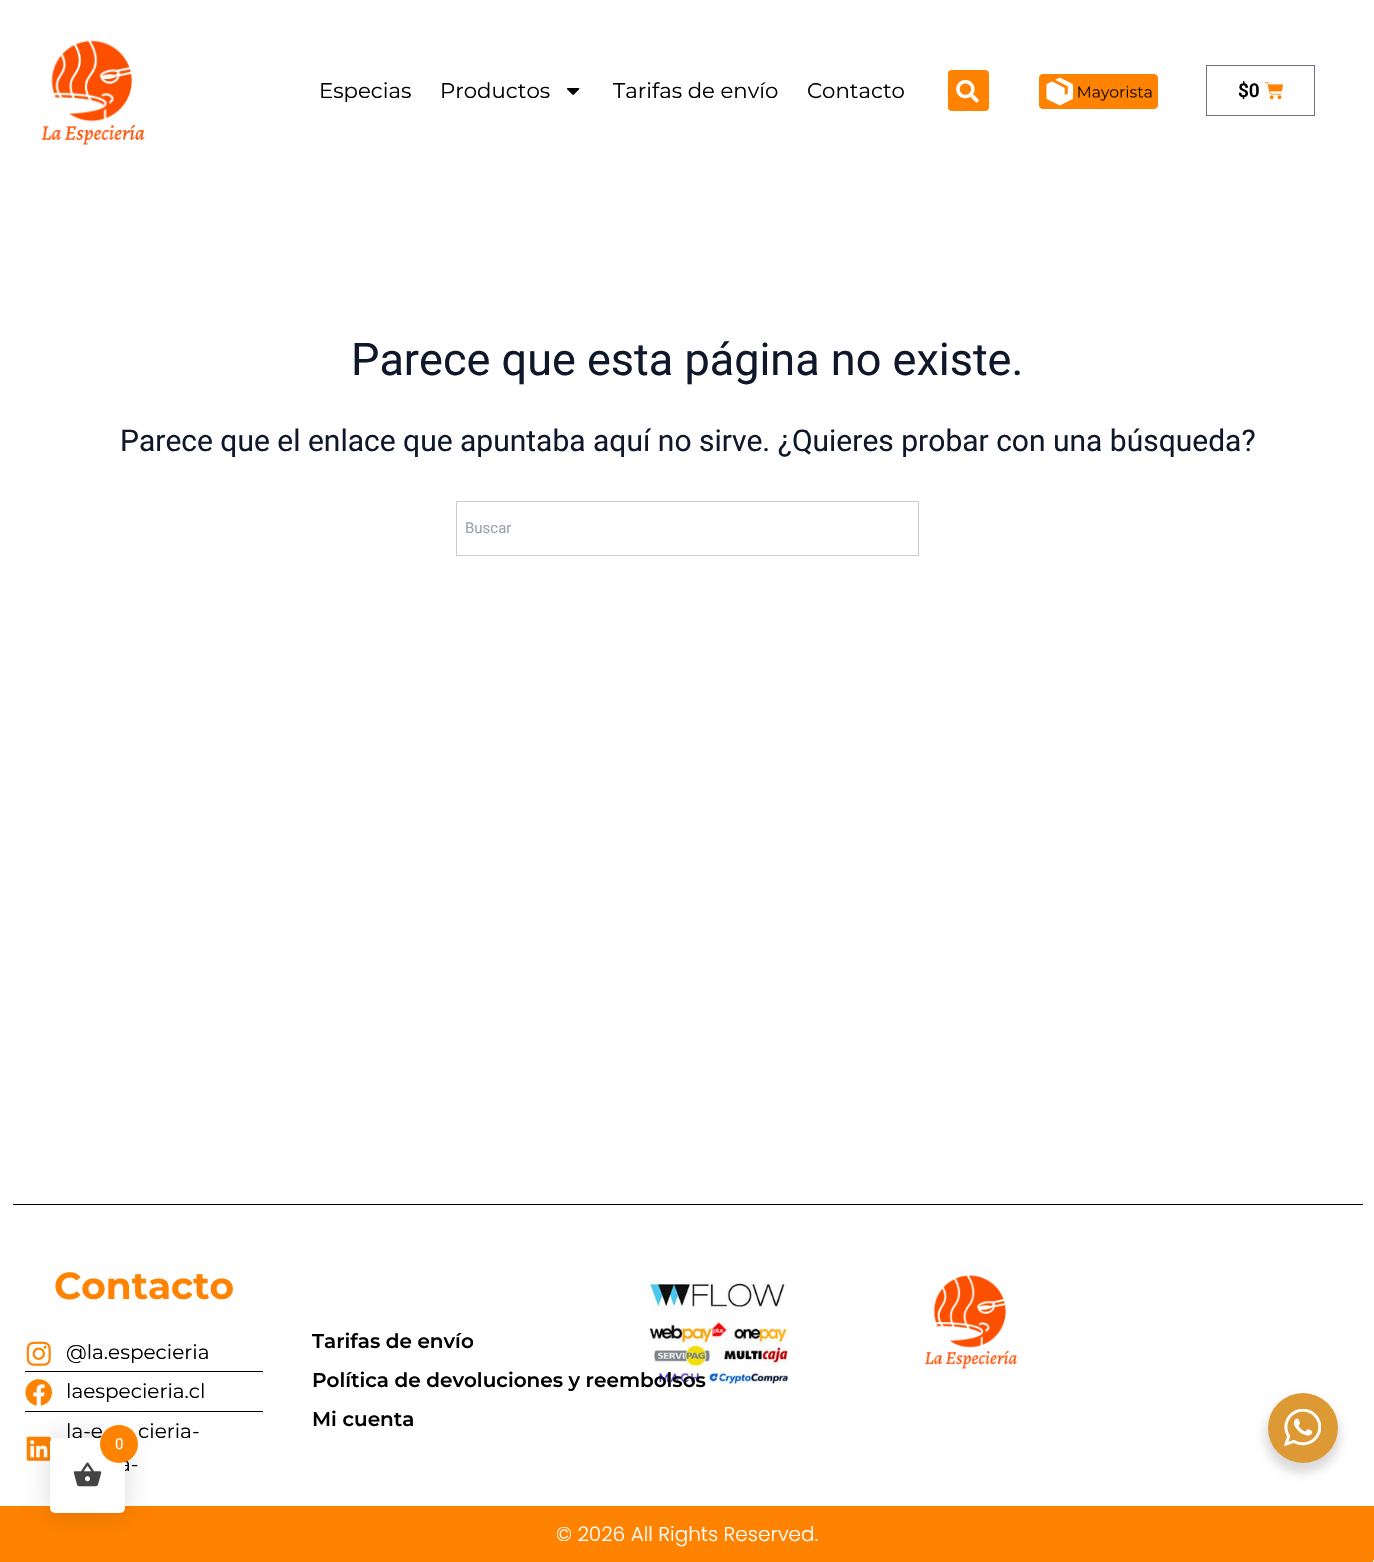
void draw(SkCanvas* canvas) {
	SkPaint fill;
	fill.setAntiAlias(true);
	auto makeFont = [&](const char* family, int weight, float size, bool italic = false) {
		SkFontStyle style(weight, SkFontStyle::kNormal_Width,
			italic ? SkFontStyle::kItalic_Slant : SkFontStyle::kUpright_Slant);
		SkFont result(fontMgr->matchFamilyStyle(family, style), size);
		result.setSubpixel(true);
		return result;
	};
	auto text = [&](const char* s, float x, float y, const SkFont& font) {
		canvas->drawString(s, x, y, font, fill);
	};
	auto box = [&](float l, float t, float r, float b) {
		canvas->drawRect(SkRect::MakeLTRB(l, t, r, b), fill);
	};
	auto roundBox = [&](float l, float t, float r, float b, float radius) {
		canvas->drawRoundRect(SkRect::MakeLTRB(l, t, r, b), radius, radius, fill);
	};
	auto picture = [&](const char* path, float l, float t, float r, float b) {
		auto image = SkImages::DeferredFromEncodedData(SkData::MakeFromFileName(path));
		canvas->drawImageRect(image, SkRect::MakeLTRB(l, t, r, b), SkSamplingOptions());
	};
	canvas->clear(0xFFFFFFFF);
	picture("image0.png", 41, 40, 145, 145);
	picture("image1.png", 567, 88, 580, 95);
	fill.setColor(0xFFFF8200);
	roundBox(948, 70, 989, 111, 4);
	picture("image2.png", 956, 80, 979, 103);
	picture("image3.png", 1039, 74, 1158, 109);
	fill.setStyle(SkPaint::kStroke_Style);
	fill.setStrokeWidth(1);
	fill.setColor(0xFF69727D);
	canvas->drawRect(SkRect::MakeLTRB(1206.5f, 65.5f, 1314.5f, 115.5f), fill);
	picture("image4.png", 1265, 82, 1283, 100);
	fill.setColor(0xFFCCCCCC);
	canvas->drawRect(SkRect::MakeLTRB(456.5f, 501.5f, 918.5f, 555.5f), fill);
	fill.setStyle(SkPaint::kFill_Style);
	fill.setColor(0xFF000000);
	box(13, 1204, 1363, 1205);
	picture("image5.png", 26, 1341, 51, 1366);
	box(25, 1371, 263, 1372);
	picture("image6.png", 25, 1379, 53, 1406);
	box(25, 1411, 263, 1412);
	picture("image7.png", 26, 1436, 51, 1461);
	picture("image8.png", 648, 1279, 788, 1384);
	picture("image9.png", 925, 1275, 1018, 1369);
	fill.setColor(0xFFFF8200);
	box(0, 1506, 1374, 1562);
	fill.setColor(0x24000000);
	fill.setMaskFilter(SkMaskFilter::MakeBlur(kNormal_SkBlurStyle, 5));
	canvas->drawRoundRect(SkRect::MakeLTRB(1265, 1398, 1340, 1473), 37.5f, 37.5f, fill);
	fill.setMaskFilter(nullptr);
	fill.setColor(0xFFDD9933);
	canvas->drawCircle(1303, 1428, 35, fill);
	picture("image10.png", 1284, 1409, 1321, 1446);
	fill.setColor(0x26000000);
	fill.setMaskFilter(SkMaskFilter::MakeBlur(kNormal_SkBlurStyle, 12.5f));
	canvas->drawRoundRect(SkRect::MakeLTRB(50, 1438, 125, 1513), 5, 5, fill);
	fill.setMaskFilter(nullptr);
	fill.setColor(0xFFF5F5F5);
	box(1373, 1560, 1374, 1562);
	auto font1 = makeFont("Montserrat", 400, 21.25f);
	fill.setColor(0xFF000000);
	text("Especias", 319, 98, font1);
	text("Productos", 440, 98, font1);
	text("Tarifas de envío", 613, 98, font1);
	text("Contacto", 807, 98, font1);
	auto font2 = makeFont("Roboto", 600, 19);
	text("$0", 1238, 97, font2);
	auto font3 = makeFont("Roboto", 400, 45);
	fill.setColor(0xFF0F172A);
	text("Parece que esta página no existe.", 351, 375, font3);
	auto font4 = makeFont("Roboto", 400, 30);
	text("Parece que el enlace que apuntaba aquí no sirve. ¿Quieres probar con una búsqueda?", 120, 451, font4);
	auto font5 = makeFont("Roboto", 400, 15);
	fill.setColor(0xFF9CA3AF);
	text("Buscar", 465, 533, font5);
	auto font6 = makeFont("Montserrat", 700, 37.5f);
	fill.setColor(0xFFFF8200);
	text("Contacto", 54, 1299, font6);
	auto font7 = makeFont("Montserrat", 400, 20);
	fill.setColor(0xFF000000);
	text("@la.especieria", 66, 1359, font7);
	text("laespecieria.cl", 66, 1398, font7);
	text("la-e", 66, 1438, font7);
	text("cieria-", 138, 1438, font7);
	text("a-", 119, 1471, font7);
	auto font8 = makeFont("Montserrat", 600, 20);
	text("Tarifas de envío", 312, 1348, font8);
	text("Política de devoluciones y reembolsos", 312, 1387, font8);
	text("Mi cuenta", 312, 1426, font8);
	auto font9 = makeFont("Poppins", 300, 20);
	fill.setColor(0xFFFFFFFF);
	text("© 2026 All Rights Reserved.", 556, 1541, font9);
	roundBox(50, 1438, 125, 1513, 5);
	picture("image11.png", 73, 1462, 102, 1487);
	fill.setColor(0xFFFF8201);
	canvas->drawCircle(119, 1444, 19, fill);
	fill.setColor(0xFFFFFFFF);
	text("0", 115, 1449, font5);
}
